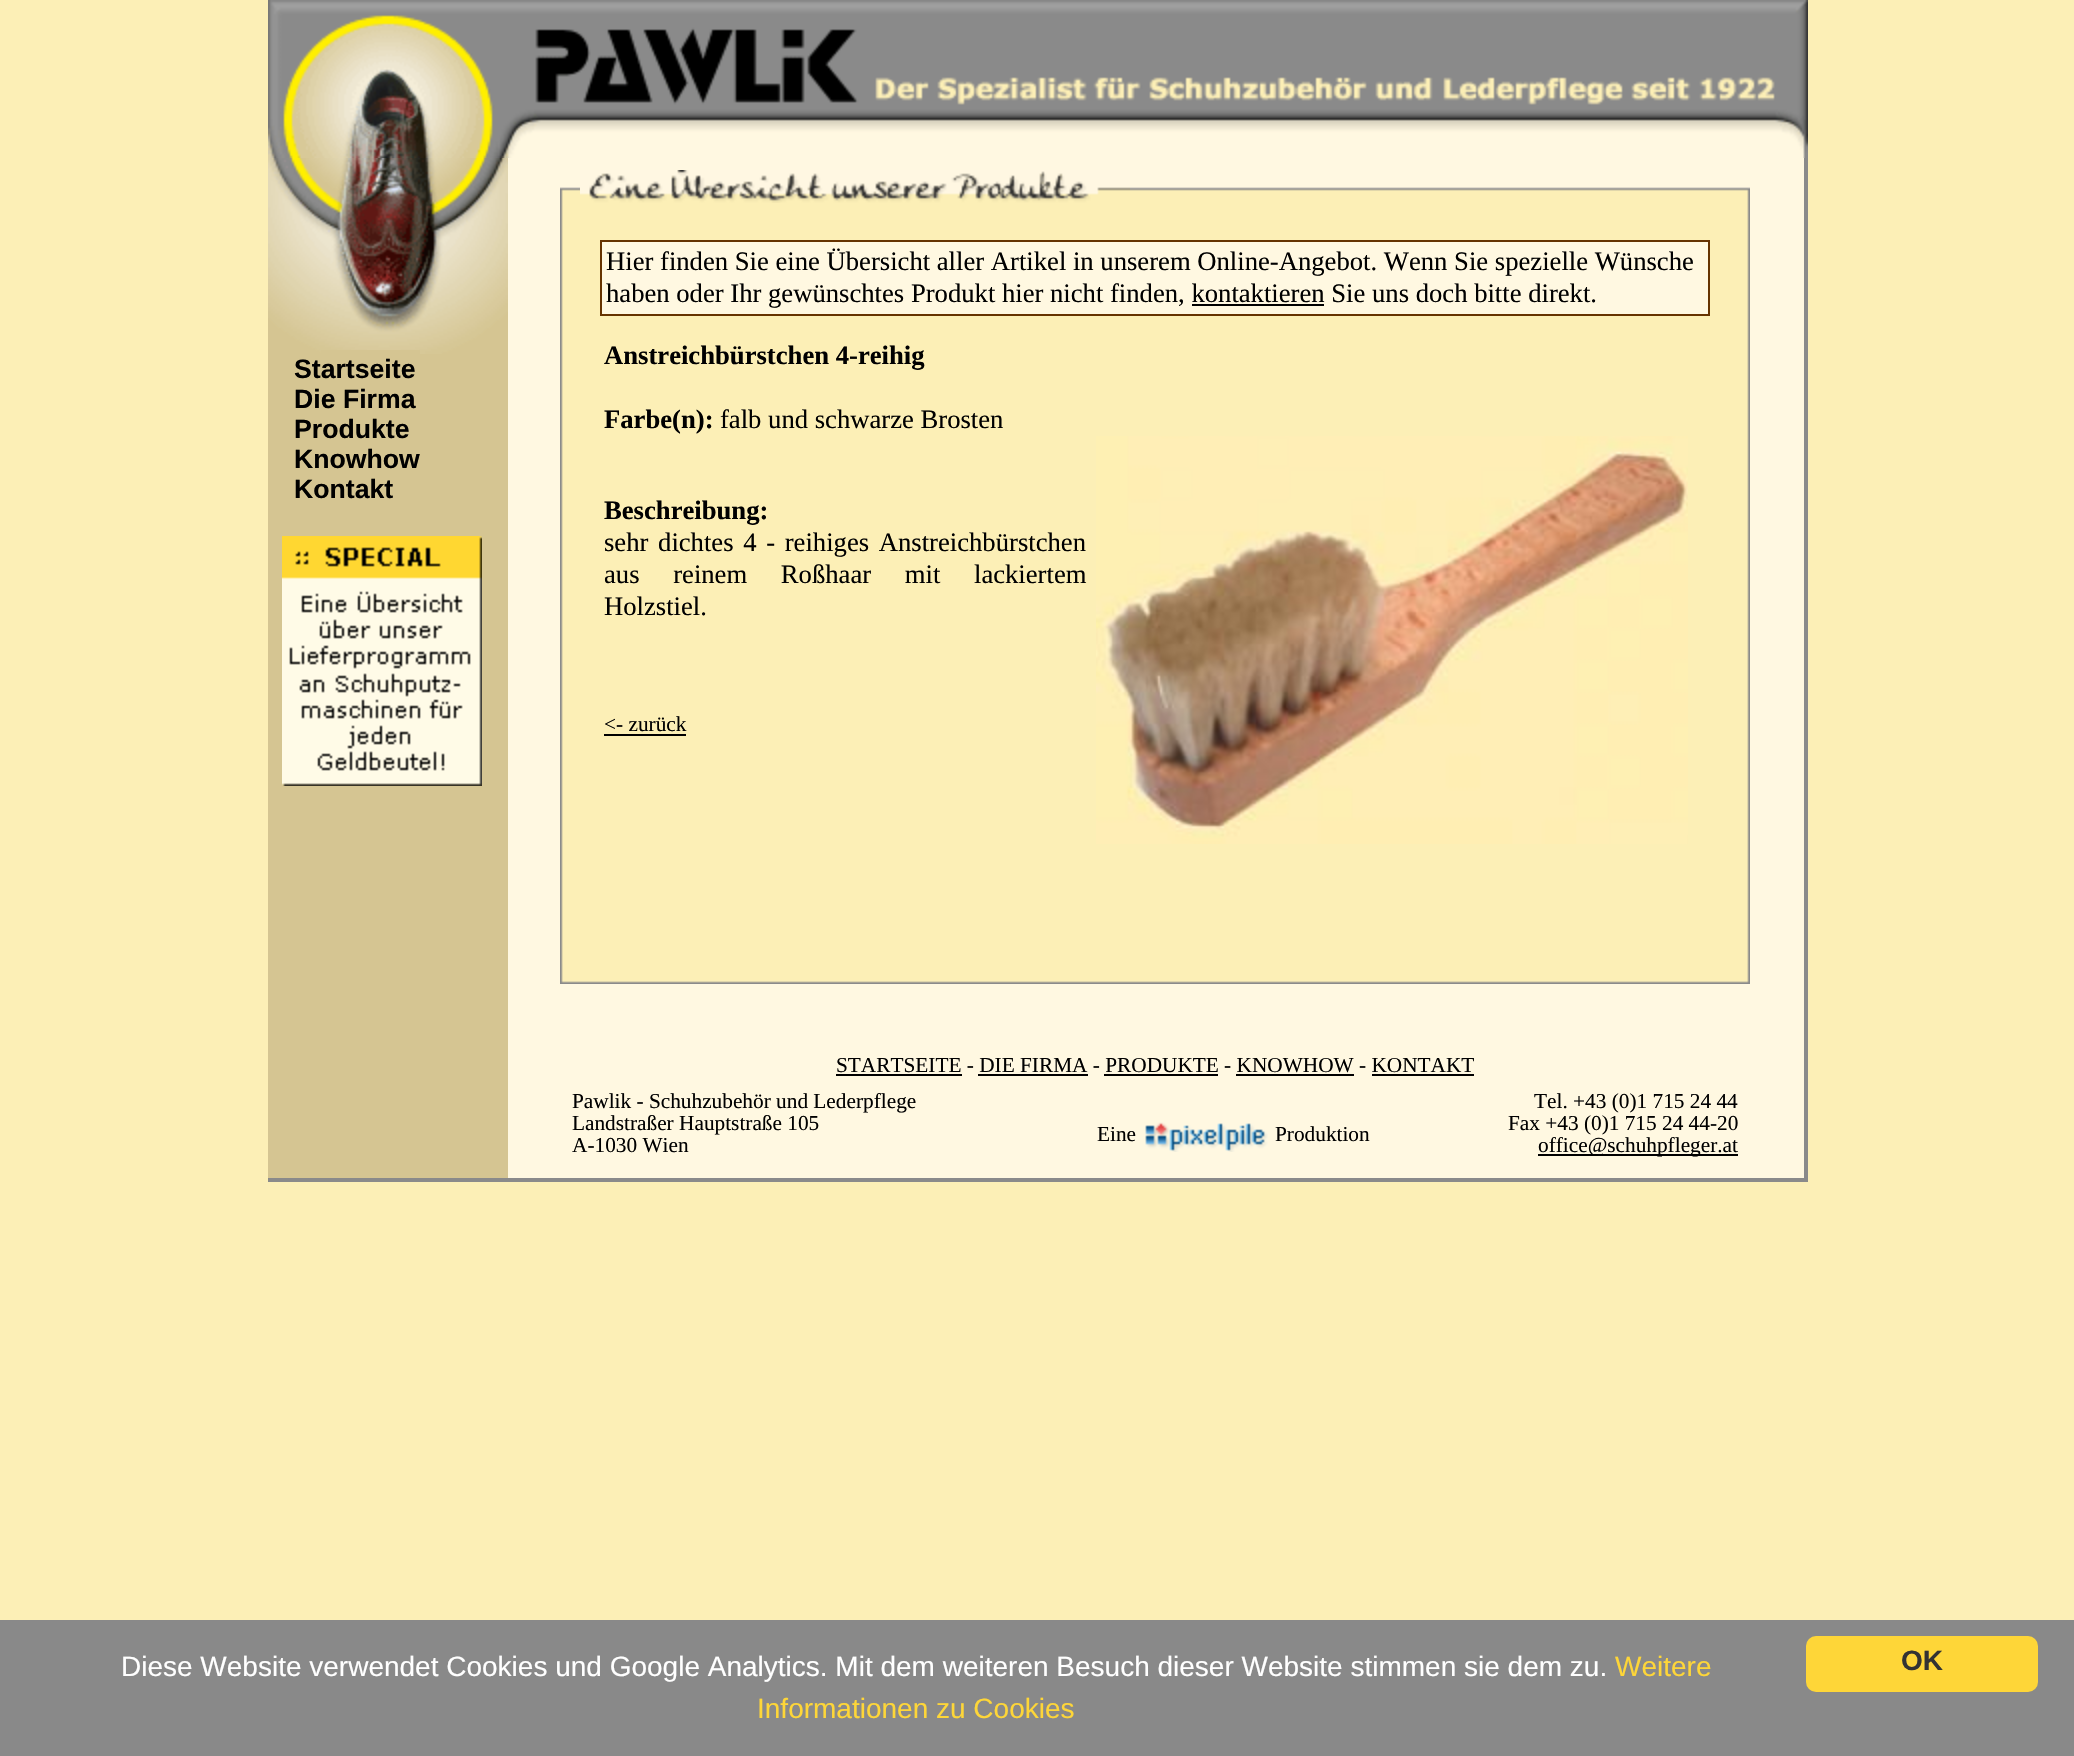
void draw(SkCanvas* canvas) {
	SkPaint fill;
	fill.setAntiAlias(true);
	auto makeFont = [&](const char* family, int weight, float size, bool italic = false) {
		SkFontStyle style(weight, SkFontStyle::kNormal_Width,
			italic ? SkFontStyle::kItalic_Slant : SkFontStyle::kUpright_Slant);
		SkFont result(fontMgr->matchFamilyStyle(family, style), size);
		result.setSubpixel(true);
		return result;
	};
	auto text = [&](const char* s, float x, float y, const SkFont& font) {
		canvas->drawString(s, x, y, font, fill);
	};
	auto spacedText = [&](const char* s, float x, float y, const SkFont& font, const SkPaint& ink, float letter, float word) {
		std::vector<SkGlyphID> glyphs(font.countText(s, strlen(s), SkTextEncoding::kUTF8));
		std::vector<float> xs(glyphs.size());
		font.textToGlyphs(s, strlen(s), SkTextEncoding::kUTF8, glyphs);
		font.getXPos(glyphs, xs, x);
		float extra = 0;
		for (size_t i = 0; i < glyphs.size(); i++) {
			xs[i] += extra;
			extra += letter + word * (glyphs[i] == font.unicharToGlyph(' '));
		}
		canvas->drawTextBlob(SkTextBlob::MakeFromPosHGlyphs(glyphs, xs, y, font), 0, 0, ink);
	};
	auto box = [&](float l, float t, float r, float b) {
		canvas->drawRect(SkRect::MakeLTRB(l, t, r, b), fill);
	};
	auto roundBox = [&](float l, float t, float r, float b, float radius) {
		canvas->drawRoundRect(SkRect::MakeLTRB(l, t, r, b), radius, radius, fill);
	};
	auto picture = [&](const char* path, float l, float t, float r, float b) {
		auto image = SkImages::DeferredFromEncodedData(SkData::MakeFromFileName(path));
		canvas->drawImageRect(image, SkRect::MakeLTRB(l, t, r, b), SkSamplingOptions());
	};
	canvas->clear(0xFFFCEFB6);
	fill.setColor(0xFFFFF8E1);
	box(511, 131, 1805, 158);
	picture("image0.png", 268, 0, 1808, 158);
	fill.setColor(0xFFD5C592);
	box(268, 158, 508, 1178);
	picture("image1.png", 268, 158, 508, 354);
	box(321, 350, 420, 354);
	picture("image2.png", 282, 536, 482, 786);
	fill.setColor(0xFFFFF8E1);
	box(508, 158, 1804, 1178);
	picture("image3.png", 560, 187, 580, 220);
	picture("image4.png", 580, 187, 1730, 220);
	picture("image5.png", 580, 170, 1130, 203);
	picture("image6.png", 1730, 187, 1750, 220);
	picture("image7.png", 560, 220, 580, 964);
	fill.setColor(0xFFFCEFB6);
	box(580, 220, 1730, 964);
	fill.setColor(0xFFFFF8E1);
	canvas->drawRect(SkRect::MakeLTRB(601, 241, 1709, 315), fill);
	fill.setStyle(SkPaint::kStroke_Style);
	fill.setStrokeWidth(2);
	fill.setColor(0xFF663300);
	canvas->drawRect(SkRect::MakeLTRB(601, 241, 1709, 315), fill);
	fill.setStyle(SkPaint::kFill_Style);
	fill.setColor(0xFF000000);
	box(1192, 304, 1324, 306);
	picture("image8.png", 1096, 436, 1688, 844);
	box(604, 734, 686, 736);
	picture("image9.png", 1730, 220, 1750, 964);
	picture("image10.png", 560, 964, 580, 984);
	picture("image11.png", 580, 964, 1730, 984);
	picture("image12.png", 1730, 964, 1750, 984);
	fill.setColor(0xFF8A8A8A);
	box(1804, 158, 1808, 1178);
	fill.setColor(0xFF000000);
	box(836, 1074, 962, 1076);
	box(978, 1074, 1088, 1076);
	box(1104, 1074, 1218, 1076);
	box(1236, 1074, 1354, 1076);
	box(1372, 1074, 1474, 1076);
	picture("image13.png", 1145, 1122, 1268, 1152);
	box(1538, 1154, 1738, 1156);
	fill.setColor(0xFF8A8A8A);
	box(268, 1178, 1808, 1182);
	fill.setColor(0xFF898989);
	box(0, 1620, 2074, 1756);
	fill.setColor(0xFFFED638);
	roundBox(1806, 1636, 2038, 1692, 10);
	auto font1 = makeFont("Liberation Sans", 700, 26.65f);
	fill.setColor(0xFF000000);
	text("Startseite", 294, 378, font1);
	text("Die Firma", 294, 408, font1);
	text("Produkte", 294, 438, font1);
	text("Knowhow", 294, 468, font1);
	text("Kontakt", 294, 498, font1);
	auto font2 = makeFont("Liberation Serif", 400, 26.65f);
	text("Hier finden Sie eine Übersicht aller Artikel in unserem Online-Angebot. Wenn Sie spezielle Wünsche", 606, 270, font2);
	text("haben oder Ihr gewünschtes Produkt hier nicht finden, kontaktieren Sie uns doch bitte direkt.", 606, 302, font2);
	auto font3 = makeFont("Liberation Serif", 700, 26.65f);
	text("Anstreichbürstchen 4-reihig", 604, 364, font3);
	text("Farbe(n):", 604, 428, font3);
	text("falb und schwarze Brosten", 720, 428, font2);
	text("Beschreibung:", 604, 519, font3);
	spacedText("sehr dichtes 4 - reihiges Anstreichbürstchen", 604, 551, font2, fill, 0, 3);
	spacedText("aus reinem Roßhaar mit lackiertem", 604, 583, font2, fill, 0, 27);
	text("Holzstiel.", 604, 615, font2);
	auto font4 = makeFont("Liberation Serif", 400, 21.3f);
	text("<- zurück", 604, 731, font4);
	text("STARTSEITE - DIE FIRMA - PRODUKTE - KNOWHOW - KONTAKT", 836, 1072, font4);
	text("Pawlik - Schuhzubehör und Lederpflege", 572, 1108, font4);
	text("Landstraßer Hauptstraße 105", 572, 1130, font4);
	text("A-1030 Wien", 572, 1152, font4);
	text("Eine", 1097, 1141, font4);
	text("Produktion", 1275, 1141, font4);
	text("Tel. +43 (0)1 715 24 44", 1534, 1108, font4);
	text("Fax +43 (0)1 715 24 44-20", 1508, 1130, font4);
	text("office@schuhpfleger.at", 1538, 1152, font4);
	auto font5 = makeFont("Liberation Sans", 400, 28);
	fill.setColor(0xFFFFFFFF);
	text("Diese Website verwendet Cookies und Google Analytics. Mit dem weiteren Besuch dieser Website stimmen sie dem zu.", 121, 1676, font5);
	fill.setColor(0xFFFED638);
	text("Weitere", 1615, 1676, font5);
	text("Informationen zu Cookies", 757, 1718, font5);
	auto font6 = makeFont("Liberation Sans", 700, 28);
	fill.setColor(0xFF333333);
	text("OK", 1901, 1670, font6);
}
